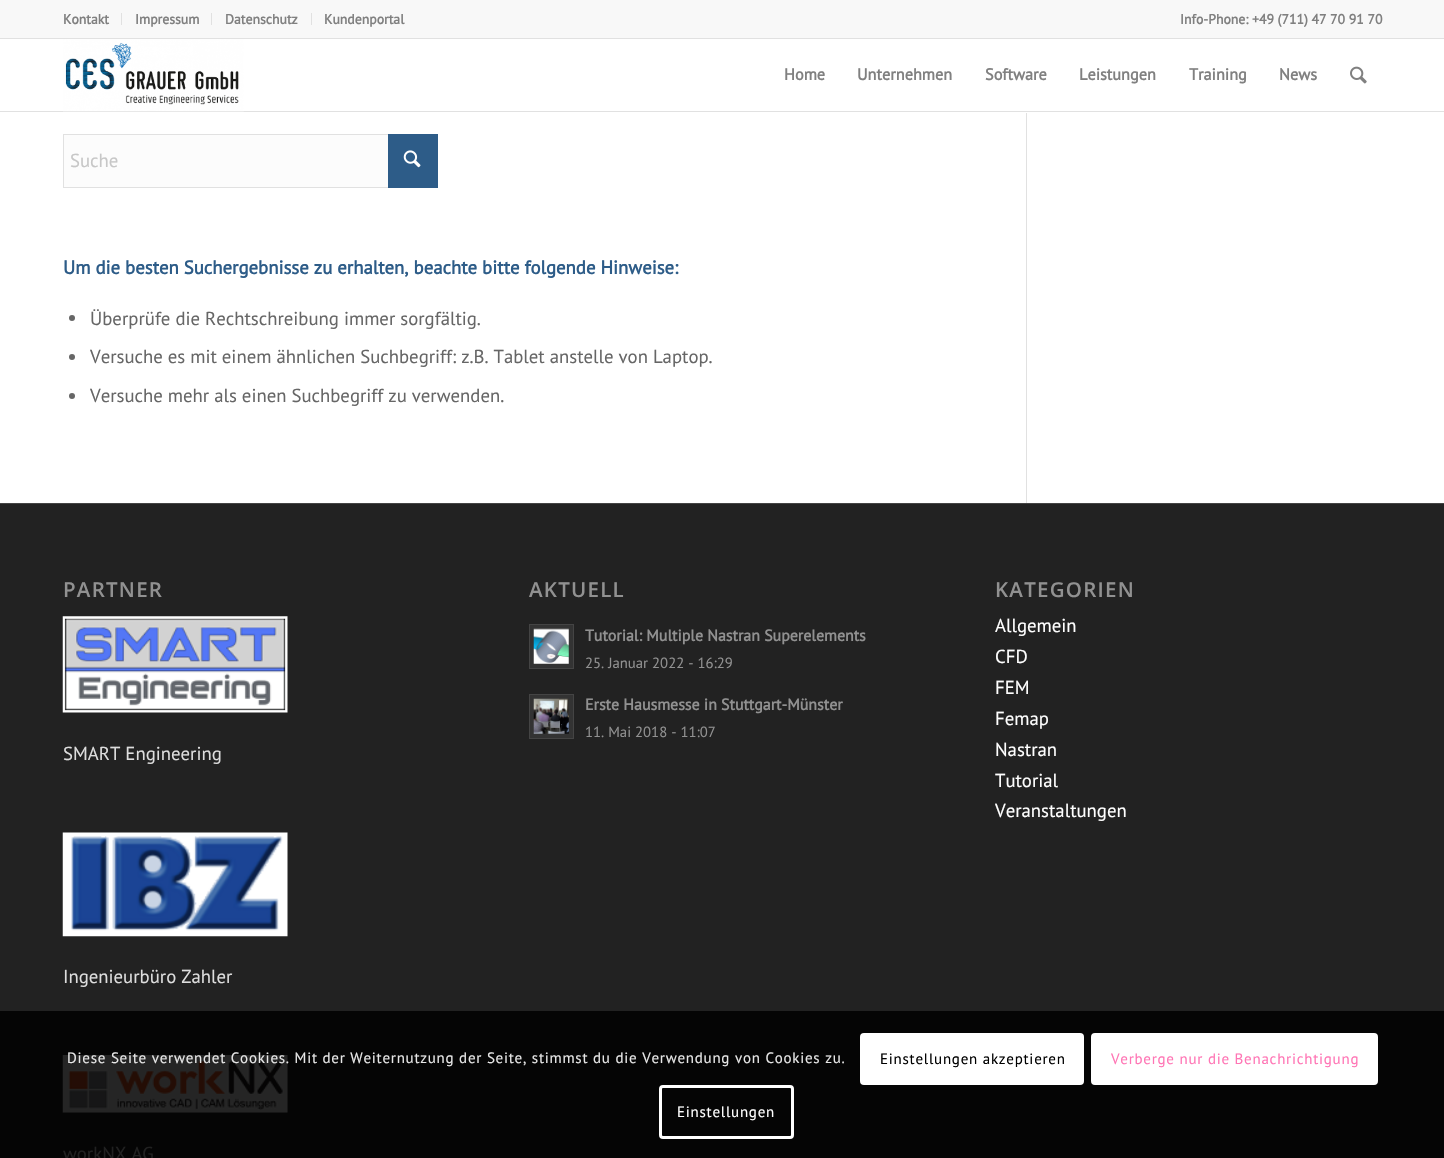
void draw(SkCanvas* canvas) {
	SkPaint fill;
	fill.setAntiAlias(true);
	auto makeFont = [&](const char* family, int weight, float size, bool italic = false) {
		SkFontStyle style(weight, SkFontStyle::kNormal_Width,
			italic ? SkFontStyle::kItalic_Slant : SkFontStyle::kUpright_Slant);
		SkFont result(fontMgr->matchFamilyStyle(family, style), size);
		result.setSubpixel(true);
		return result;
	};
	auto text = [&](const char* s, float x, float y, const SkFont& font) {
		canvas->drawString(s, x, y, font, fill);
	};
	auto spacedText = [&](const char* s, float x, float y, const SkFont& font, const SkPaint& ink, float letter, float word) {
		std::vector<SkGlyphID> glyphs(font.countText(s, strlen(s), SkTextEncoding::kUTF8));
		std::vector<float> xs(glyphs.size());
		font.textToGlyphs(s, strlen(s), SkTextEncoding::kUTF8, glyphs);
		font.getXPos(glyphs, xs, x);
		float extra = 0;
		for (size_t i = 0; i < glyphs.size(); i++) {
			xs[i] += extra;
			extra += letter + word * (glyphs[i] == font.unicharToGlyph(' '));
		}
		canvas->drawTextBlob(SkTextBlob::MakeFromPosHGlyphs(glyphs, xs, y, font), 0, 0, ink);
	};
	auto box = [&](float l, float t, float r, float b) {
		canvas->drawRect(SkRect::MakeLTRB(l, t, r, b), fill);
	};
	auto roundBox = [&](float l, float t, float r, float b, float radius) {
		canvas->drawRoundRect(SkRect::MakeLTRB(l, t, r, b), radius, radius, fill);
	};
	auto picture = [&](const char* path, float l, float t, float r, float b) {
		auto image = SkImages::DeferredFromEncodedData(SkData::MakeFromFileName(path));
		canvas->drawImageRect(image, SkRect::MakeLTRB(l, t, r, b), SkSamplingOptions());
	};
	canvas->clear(0xFFFFFFFF);
	fill.setColor(0xFFF8F8F8);
	box(0, 0, 1444, 38);
	fill.setColor(0xFFE1E1E1);
	box(0, 38, 1444, 39);
	box(121, 13, 122, 25);
	box(211, 13, 212, 25);
	box(311, 13, 312, 25);
	box(0, 111, 1444, 112);
	picture("image0.png", 63, 39, 244, 112);
	picture("image1.png", 1350, 66, 1367, 84);
	box(1026, 113, 1027, 503);
	fill.setColor(0xFFFCFCFC);
	box(64, 135, 388, 187);
	fill.setStyle(SkPaint::kStroke_Style);
	fill.setStrokeWidth(1);
	fill.setColor(0xFFE1E1E1);
	canvas->drawRect(SkRect::MakeLTRB(63.5f, 134.5f, 437.5f, 187.5f), fill);
	fill.setStyle(SkPaint::kFill_Style);
	fill.setColor(0xFF2D5C88);
	box(388, 134, 438, 188);
	picture("image2.png", 403, 150, 421, 168);
	fill.setColor(0xFF666666);
	canvas->drawCircle(72, 318, 3, fill);
	canvas->drawCircle(72, 357, 3, fill);
	canvas->drawCircle(72, 396, 3, fill);
	fill.setColor(0xFF222222);
	box(0, 504, 1444, 1011);
	fill.setColor(0xFF050505);
	box(0, 1011, 1444, 1158);
	fill.setColor(0xFF444444);
	box(0, 503, 1444, 504);
	picture("image3.png", 62, 616, 288, 713);
	picture("image4.png", 62, 832, 288, 937);
	picture("image5.png", 62, 1055, 288, 1113);
	fill.setColor(0xFF333333);
	canvas->drawRect(SkRect::MakeLTRB(529.5f, 624.5f, 573.5f, 668.5f), fill);
	fill.setStyle(SkPaint::kStroke_Style);
	fill.setColor(0xFF444444);
	canvas->drawRect(SkRect::MakeLTRB(529.5f, 624.5f, 573.5f, 668.5f), fill);
	picture("image6.png", 533, 628, 569, 664);
	fill.setStyle(SkPaint::kFill_Style);
	fill.setColor(0xFF333333);
	canvas->drawRect(SkRect::MakeLTRB(529.5f, 694.5f, 573.5f, 738.5f), fill);
	fill.setStyle(SkPaint::kStroke_Style);
	fill.setColor(0xFF444444);
	canvas->drawRect(SkRect::MakeLTRB(529.5f, 694.5f, 573.5f, 738.5f), fill);
	picture("image7.png", 533, 698, 569, 734);
	fill.setStyle(SkPaint::kFill_Style);
	fill.setColor(0xFFFFFFFF);
	roundBox(860, 1033, 1084, 1085, 4);
	canvas->drawRoundRect(SkRect::MakeLTRB(1092.5f, 1034.5f, 1376.5f, 1083.5f), 2.5f, 2.5f, fill);
	fill.setStyle(SkPaint::kStroke_Style);
	fill.setStrokeWidth(3);
	canvas->drawRoundRect(SkRect::MakeLTRB(1092.5f, 1034.5f, 1376.5f, 1083.5f), 2.5f, 2.5f, fill);
	canvas->drawRoundRect(SkRect::MakeLTRB(660.5f, 1086.5f, 792.5f, 1137.5f), 2.5f, 2.5f, fill);
	auto font1 = makeFont("PT Sans", 700, 13.75f);
	fill.setStyle(SkPaint::kFill_Style);
	fill.setColor(0xFF808080);
	text("Kontakt", 63, 24, font1);
	text("Impressum", 135, 24, font1);
	text("Datenschutz", 225, 24, font1);
	text("Kundenportal", 324, 24, font1);
	text("Info-Phone: +49 (711) 47 70 91 70", 1180, 24, font1);
	auto font2 = makeFont("PT Sans", 700, 16.25f);
	text("Home", 784, 80, font2);
	text("Unternehmen", 857, 80, font2);
	text("Software", 985, 80, font2);
	text("Leistungen", 1079, 80, font2);
	text("Training", 1189, 80, font2);
	text("News", 1279, 80, font2);
	auto font3 = makeFont("PT Sans", 400, 18.75f);
	fill.setColor(0xFFC7C7C7);
	text("Suche", 70, 167, font3);
	auto font4 = makeFont("PT Sans", 700, 18.75f);
	fill.setColor(0xFF2D5C88);
	text("Um die besten Suchergebnisse zu erhalten, beachte bitte folgende Hinweise:", 63, 274, font4);
	fill.setColor(0xFF666666);
	text("Überprüfe die Rechtschreibung immer sorgfältig.", 90, 325, font3);
	text("Versuche es mit einem ähnlichen Suchbegriff: z.B. Tablet anstelle von Laptop.", 90, 363, font3);
	text("Versuche mehr als einen Suchbegriff zu verwenden.", 90, 402, font3);
	auto font5 = makeFont("Open Sans", 600, 20.5f);
	fill.setColor(0xFF919191);
	spacedText("PARTNER", 63, 597, font5, fill, 1.25f, 0);
	fill.setColor(0xFFDDDDDD);
	text("SMART Engineering", 63, 760, font3);
	text("Ingenieurbüro Zahler", 63, 983, font3);
	fill.setColor(0xFF212121);
	text("workNX AG", 63, 1160, font3);
	fill.setColor(0xFF919191);
	spacedText("AKTUELL", 529, 597, font5, fill, 1.25f, 0);
	auto font6 = makeFont("PT Sans", 700, 15.9f);
	text("Tutorial: Multiple Nastran Superelements", 585, 641, font6);
	auto font7 = makeFont("PT Sans", 400, 14.75f);
	text("25. Januar 2022 - 16:29", 585, 668, font7);
	text("Erste Hausmesse in Stuttgart-Münster", 585, 710, font6);
	text("11. Mai 2018 - 11:07", 585, 737, font7);
	spacedText("KATEGORIEN", 995, 597, font5, fill, 1.25f, 0);
	fill.setColor(0xFFFFFFFF);
	text("Allgemein", 995, 632, font3);
	text("CFD", 995, 663, font3);
	text("FEM", 995, 694, font3);
	text("Femap", 995, 725, font3);
	text("Nastran", 995, 756, font3);
	text("Tutorial", 995, 787, font3);
	text("Veranstaltungen", 995, 817, font3);
	auto font8 = makeFont("PT Sans", 400, 15);
	fill.setColor(0xFFE7E7E7);
	spacedText("Diese Seite verwendet Cookies. Mit der Weiternutzung der Seite, stimmst du die Verwendung von Cookies zu.", 67, 1063, font8, fill, 0.75f, 0);
	fill.setColor(0xFF000000);
	spacedText("Einstellungen akzeptieren", 880, 1064, font8, fill, 0.75f, 0);
	fill.setColor(0xFFFF75B5);
	spacedText("Verberge nur die Benachrichtigung", 1111, 1064, font8, fill, 0.75f, 0);
	fill.setColor(0xFFFFFFFF);
	spacedText("Einstellungen", 677, 1117, font8, fill, 0.75f, 0);
}
